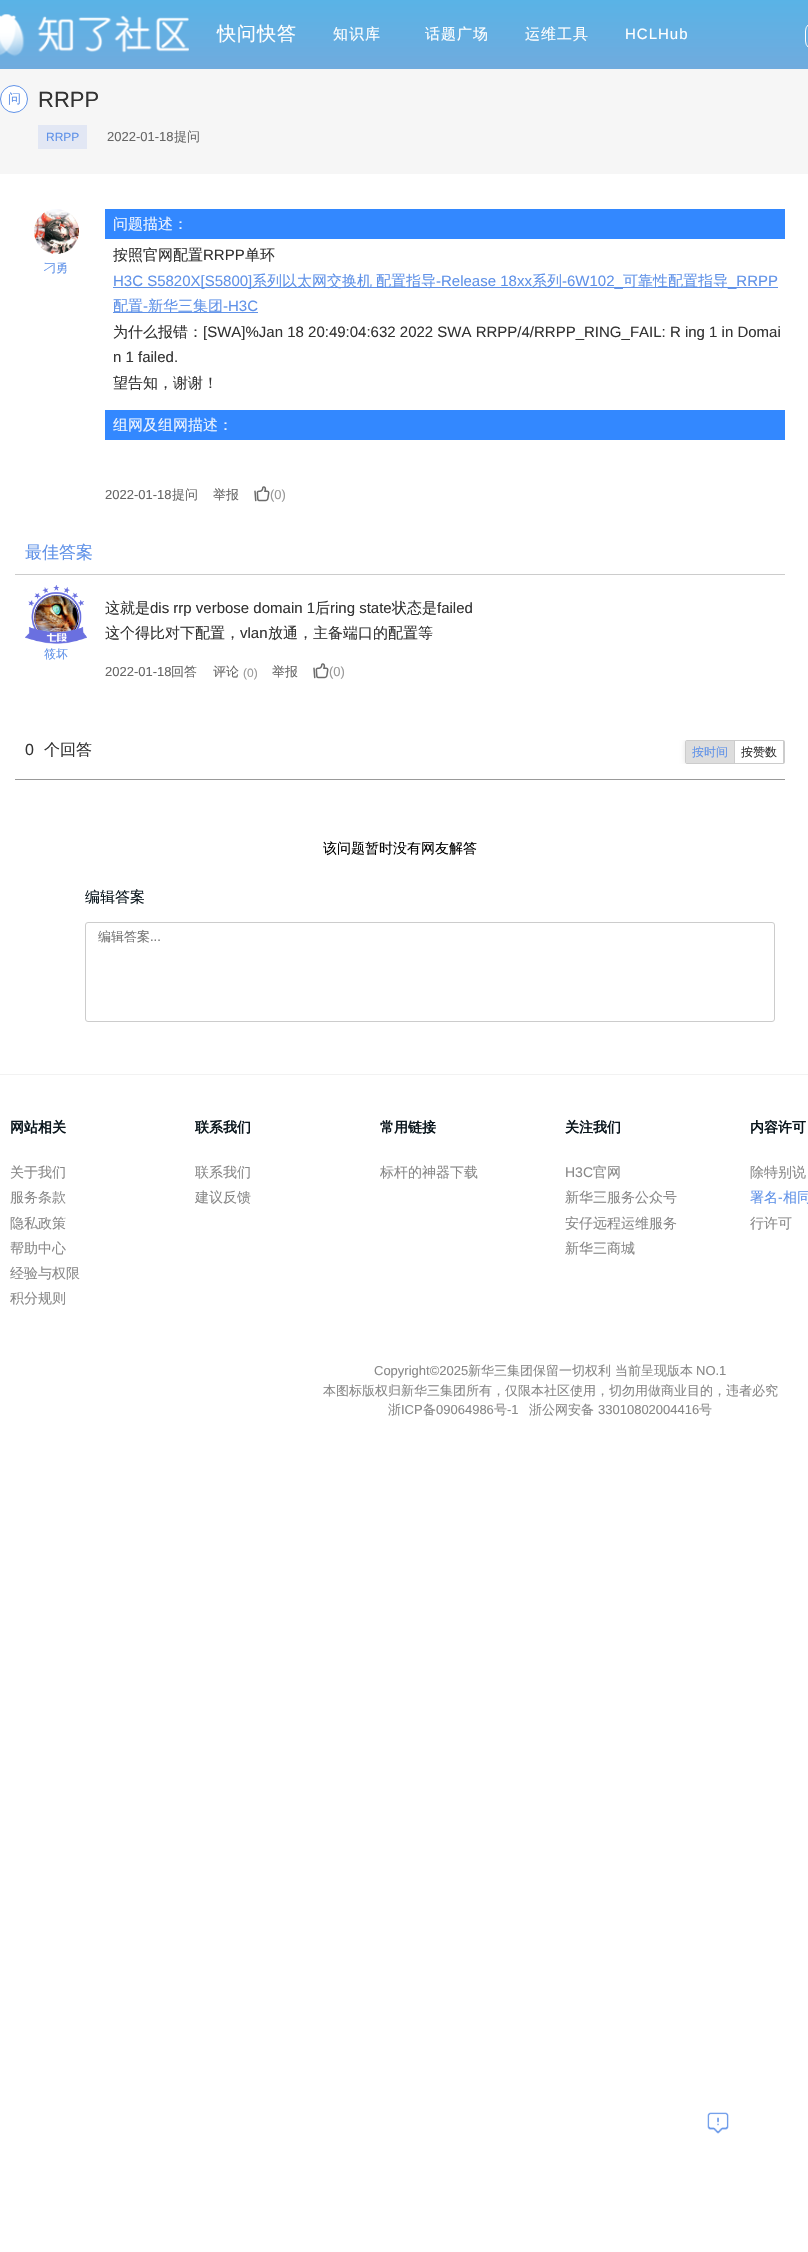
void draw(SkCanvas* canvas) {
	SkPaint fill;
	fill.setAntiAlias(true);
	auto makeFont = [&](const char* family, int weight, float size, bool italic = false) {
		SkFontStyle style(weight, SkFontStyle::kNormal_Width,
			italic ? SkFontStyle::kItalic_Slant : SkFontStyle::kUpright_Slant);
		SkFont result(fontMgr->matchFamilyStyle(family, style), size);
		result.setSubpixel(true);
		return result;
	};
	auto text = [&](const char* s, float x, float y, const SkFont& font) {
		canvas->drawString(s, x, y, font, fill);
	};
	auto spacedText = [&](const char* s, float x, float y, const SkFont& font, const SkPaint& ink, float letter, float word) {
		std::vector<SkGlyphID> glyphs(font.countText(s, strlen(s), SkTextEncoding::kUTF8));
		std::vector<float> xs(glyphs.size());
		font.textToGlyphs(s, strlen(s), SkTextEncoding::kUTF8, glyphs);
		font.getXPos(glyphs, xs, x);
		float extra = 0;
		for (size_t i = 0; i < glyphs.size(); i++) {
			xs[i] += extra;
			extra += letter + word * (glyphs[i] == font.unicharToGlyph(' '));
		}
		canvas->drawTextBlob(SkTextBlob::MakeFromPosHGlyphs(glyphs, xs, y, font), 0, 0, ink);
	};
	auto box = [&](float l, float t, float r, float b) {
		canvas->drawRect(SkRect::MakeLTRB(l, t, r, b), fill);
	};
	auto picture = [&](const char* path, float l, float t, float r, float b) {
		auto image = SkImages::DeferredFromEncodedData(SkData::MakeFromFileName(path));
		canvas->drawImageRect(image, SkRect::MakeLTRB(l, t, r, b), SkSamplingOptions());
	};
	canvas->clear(0xFFFFFFFF);
	{
		const SkColor colors[] = {0xFF59B3E6, 0xFF70ABDE};
		const float stops[] = {0, 1};
		const SkPoint ends[] = {{404, 0}, {404, 69}};
		fill.setShader(SkGradientShader::MakeLinear(ends, colors, stops, 2, SkTileMode::kClamp));
		fill.setAlpha(255);
	}
	box(0, 0, 808, 69);
	picture("image0.png", 0, 14, 189, 57);
	fill.setStyle(SkPaint::kStroke_Style);
	fill.setStrokeWidth(1);
	fill.setShader(nullptr);
	fill.setColor(0xFFFFFFFF);
	canvas->drawRoundRect(SkRect::MakeLTRB(805.5f, 22.5f, 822.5f, 49.5f), 13.5f, 13.5f, fill);
	fill.setStyle(SkPaint::kFill_Style);
	fill.setColor(0xFFF6F6F6);
	box(0, 69, 808, 174);
	fill.setColor(0xFFFFFFFF);
	canvas->drawCircle(14, 99, 13.5f, fill);
	fill.setStyle(SkPaint::kStroke_Style);
	fill.setColor(0xFF6092E8);
	canvas->drawCircle(14, 99, 13.5f, fill);
	fill.setStyle(SkPaint::kFill_Style);
	fill.setColor(0xFFE2E7F4);
	box(38, 125, 87, 149);
	picture("image1.png", 34, 209, 79, 254);
	fill.setColor(0xFF3388FF);
	box(105, 209, 785, 239);
	fill.setColor(0xFF6092E8);
	box(113, 287, 778, 288);
	box(113, 312, 258, 313);
	fill.setColor(0xFF3388FF);
	box(105, 410, 785, 440);
	picture("image2.png", 254, 486, 270, 502);
	fill.setColor(0xFFCCCCCC);
	box(15, 574, 785, 575);
	picture("image4.png", 34, 595, 79, 632);
	picture("image3.png", 25, 585, 87, 644);
	picture("image2.png", 313, 663, 329, 679);
	fill.setColor(0xFF999999);
	box(15, 779, 785, 780);
	canvas->save();
	canvas->clipRect(SkRect::MakeLTRB(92, 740, 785, 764));
	canvas->clipPath(SkPathBuilder(SkPathFillType::kEvenOdd).moveTo(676, 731).lineTo(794, 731).lineTo(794, 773).lineTo(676, 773).close().moveTo(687, 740).lineTo(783, 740).cubicTo(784, 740, 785, 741, 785, 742).lineTo(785, 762).cubicTo(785, 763, 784, 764, 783, 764).lineTo(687, 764).cubicTo(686, 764, 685, 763, 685, 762).lineTo(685, 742).cubicTo(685, 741, 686, 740, 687, 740).close().detach(), true);
	fill.setColor(0x1A000000);
	fill.setMaskFilter(SkMaskFilter::MakeBlur(kNormal_SkBlurStyle, 2.5f));
	canvas->drawRoundRect(SkRect::MakeLTRB(685, 740, 785, 764), 2, 2, fill);
	fill.setMaskFilter(nullptr);
	canvas->restore();
	fill.setStyle(SkPaint::kStroke_Style);
	fill.setColor(0xFFCCCCCC);
	canvas->drawRoundRect(SkRect::MakeLTRB(685.5f, 740.5f, 784.5f, 763.5f), 1.5f, 1.5f, fill);
	fill.setStyle(SkPaint::kFill_Style);
	fill.setColor(0xFFDDDDDD);
	box(686, 741, 734, 763);
	fill.setColor(0xFFCCCCCC);
	box(734, 741, 735, 763);
	box(783, 741, 784, 763);
	fill.setStyle(SkPaint::kStroke_Style);
	canvas->drawRoundRect(SkRect::MakeLTRB(85.5f, 922.5f, 774.5f, 1021.5f), 2.5f, 2.5f, fill);
	fill.setStyle(SkPaint::kFill_Style);
	fill.setColor(0xFFF2F2F2);
	box(0, 1074, 808, 1075);
	picture("image5.png", 707, 2112, 729, 2134);
	auto font1 = makeFont("WenQuanYi Zen Hei", 500, 19);
	fill.setColor(0xFFFFFFFF);
	spacedText("快问快答", 217, 40, font1, fill, 1, 0);
	auto font2 = makeFont("WenQuanYi Zen Hei", 500, 15);
	spacedText("知识库", 333, 39, font2, fill, 1, 0);
	spacedText("话题广场", 425, 39, font2, fill, 1, 0);
	spacedText("运维工具", 525, 39, font2, fill, 1, 0);
	auto font3 = makeFont("Liberation Sans", 400, 15);
	spacedText("HCLHub", 625, 39, font3, fill, 1, 0);
	auto font4 = makeFont("WenQuanYi Zen Hei", 500, 13);
	fill.setColor(0xFF6092E8);
	text("问", 8, 103, font4);
	auto font5 = makeFont("Liberation Sans", 400, 22);
	fill.setColor(0xFF333333);
	text("RRPP", 38, 107, font5);
	auto font6 = makeFont("Liberation Sans", 400, 12);
	fill.setColor(0xFF6092E8);
	text("RRPP", 46, 141, font6);
	auto font7 = makeFont("Liberation Sans", 400, 13);
	fill.setColor(0xFF666666);
	text("2022-01-18", 107, 141, font7);
	text("提问", 174, 141, font4);
	auto font8 = makeFont("WenQuanYi Zen Hei", 500, 12);
	fill.setColor(0xFF6092E8);
	text("刁勇", 44, 272, font8);
	fill.setColor(0xFFEBF3FF);
	text("问题描述：", 113, 229, font2);
	fill.setColor(0xFF333333);
	text("按照官网配置", 113, 260, font2);
	text("RRPP", 203, 260, font3);
	text("单环", 245, 260, font2);
	fill.setColor(0xFF6092E8);
	text("H3C S5820X[S5800]", 113, 286, font3);
	text("系列以太网交换机", 252, 286, font2);
	text("配置指导", 376, 286, font2);
	text("-Release 18xx", 436, 286, font3);
	text("系列", 532, 286, font2);
	text("-6W102_", 562, 286, font3);
	text("可靠性配置指导", 623, 286, font2);
	text("_RRPP", 728, 286, font3);
	text("配置", 113, 311, font2);
	text("-", 143, 311, font3);
	text("新华三集团", 148, 311, font2);
	text("-H3C", 223, 311, font3);
	fill.setColor(0xFF333333);
	text("为什么报错：", 113, 337, font2);
	text("[SWA]%Jan 18 20:49:04:632 2022 SWA RRPP/4/RRPP_RING_FAIL: R ing 1 in Domai", 203, 337, font3);
	text("n 1 failed.", 113, 362, font3);
	text("望告知，谢谢！", 113, 388, font2);
	fill.setColor(0xFFEBF3FF);
	text("组网及组网描述：", 113, 430, font2);
	fill.setColor(0xFF666666);
	text("2022-01-18", 105, 499, font7);
	text("提问", 172, 499, font4);
	text("举报", 213, 499, font4);
	fill.setColor(0xFF999999);
	text("(0)", 270, 499, font7);
	auto font9 = makeFont("WenQuanYi Zen Hei", 500, 17);
	fill.setColor(0xFF6092E8);
	text("最佳答案", 25, 558, font9);
	fill.setColor(0xFF333333);
	text("这就是", 105, 613, font2);
	text("dis rrp verbose domain 1", 150, 613, font3);
	text("后", 315, 613, font2);
	text("ring state", 330, 613, font3);
	text("状态是", 392, 613, font2);
	text("failed", 437, 613, font3);
	text("这个得比对下配置，", 105, 638, font2);
	text("vlan", 240, 638, font3);
	text("放通，主备端口的配置等", 268, 638, font2);
	fill.setColor(0xFF666666);
	text("2022-01-18", 105, 676, font7);
	text("回答", 171, 676, font4);
	text("评论", 213, 676, font4);
	fill.setColor(0xFF999999);
	text("(0)", 243, 677, font6);
	fill.setColor(0xFF666666);
	text("举报", 272, 676, font4);
	fill.setColor(0xFF999999);
	text("(0)", 329, 676, font7);
	fill.setColor(0xFF6092E8);
	text("筱坏", 44, 658, font8);
	auto font10 = makeFont("Liberation Sans", 400, 16);
	fill.setColor(0xFF333333);
	text("0", 25, 755, font10);
	auto font11 = makeFont("WenQuanYi Zen Hei", 500, 16);
	text("个回答", 44, 755, font11);
	fill.setColor(0xFF6092E8);
	text("按时间", 692, 756, font8);
	fill.setColor(0xFF333333);
	text("按赞数", 741, 756, font8);
	auto font12 = makeFont("WenQuanYi Zen Hei", 500, 14);
	fill.setColor(0xFF000000);
	text("该问题暂时没有网友解答", 323, 853, font12);
	fill.setColor(0xFF0A161D);
	text("编辑答案", 85, 902, font2);
	fill.setColor(0xFF757575);
	text("编辑答案", 98, 941, font4);
	text("...", 150, 941, font7);
	auto font13 = makeFont("WenQuanYi Zen Hei", 700, 14);
	fill.setColor(0xFF0A161D);
	text("网站相关", 10, 1132, font13);
	fill.setColor(0xFF888888);
	text("关于我们", 10, 1177, font12);
	text("服务条款", 10, 1202, font12);
	text("隐私政策", 10, 1228, font12);
	text("帮助中心", 10, 1253, font12);
	text("经验与权限", 10, 1278, font12);
	text("积分规则", 10, 1303, font12);
	fill.setColor(0xFF0A161D);
	text("联系我们", 195, 1132, font13);
	fill.setColor(0xFF888888);
	text("联系我们", 195, 1177, font12);
	text("建议反馈", 195, 1202, font12);
	fill.setColor(0xFF0A161D);
	text("常用链接", 380, 1132, font13);
	fill.setColor(0xFF888888);
	text("标杆的神器下载", 380, 1177, font12);
	fill.setColor(0xFF0A161D);
	text("关注我们", 565, 1132, font13);
	auto font14 = makeFont("Liberation Sans", 400, 14);
	fill.setColor(0xFF888888);
	text("H3C", 565, 1177, font14);
	text("官网", 593, 1177, font12);
	text("新华三服务公众号", 565, 1202, font12);
	text("安仔远程运维服务", 565, 1228, font12);
	text("新华三商城", 565, 1253, font12);
	fill.setColor(0xFF0A161D);
	text("内容许可", 750, 1132, font13);
	fill.setColor(0xFF888888);
	text("除特别说", 750, 1177, font12);
	fill.setColor(0xFF6092E8);
	text("署名", 750, 1202, font12);
	text("-", 778, 1202, font14);
	text("相同", 783, 1202, font12);
	fill.setColor(0xFF888888);
	text("行许可", 750, 1228, font12);
	text("Copyright©2025", 374, 1375, font7);
	text("新华三集团保留一切权利 当前呈现版本", 468, 1375, font4);
	text("NO.1", 696, 1375, font7);
	text("本图标版权归新华三集团所有，仅限本社区使用，切勿用做商业目的，违者必究", 323, 1395, font4);
	text("浙", 388, 1414, font4);
	text("ICP", 401, 1414, font7);
	text("备", 423, 1414, font4);
	text("09064986", 436, 1414, font7);
	text("号", 494, 1414, font4);
	text("-1", 507, 1414, font7);
	text("浙公网安备", 529, 1414, font4);
	text("33010802004416", 598, 1414, font7);
	text("号", 699, 1414, font4);
}
